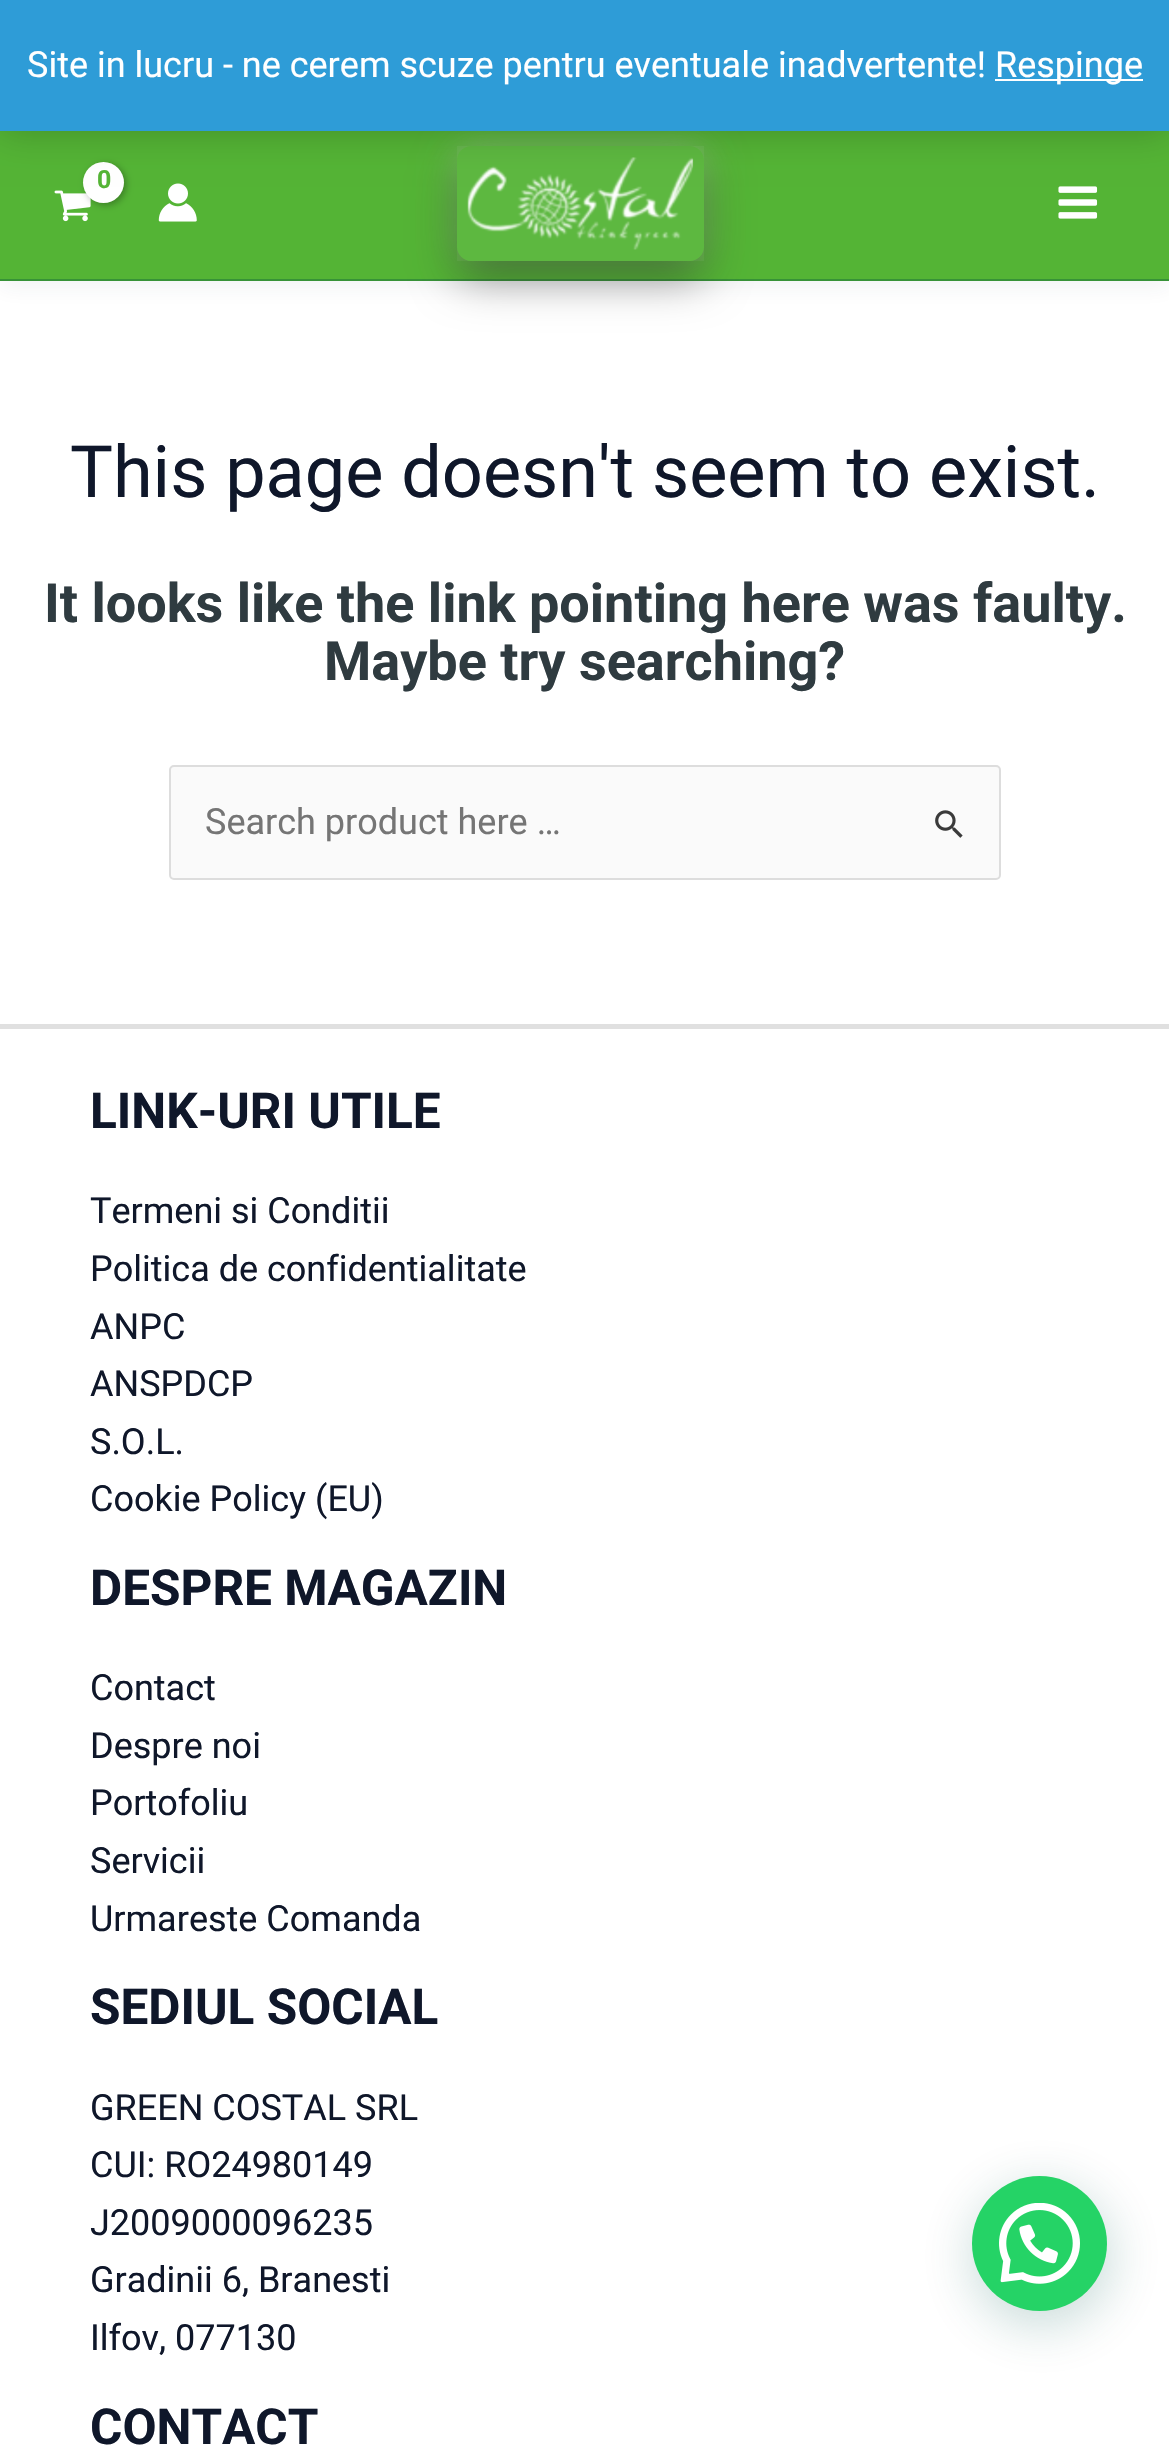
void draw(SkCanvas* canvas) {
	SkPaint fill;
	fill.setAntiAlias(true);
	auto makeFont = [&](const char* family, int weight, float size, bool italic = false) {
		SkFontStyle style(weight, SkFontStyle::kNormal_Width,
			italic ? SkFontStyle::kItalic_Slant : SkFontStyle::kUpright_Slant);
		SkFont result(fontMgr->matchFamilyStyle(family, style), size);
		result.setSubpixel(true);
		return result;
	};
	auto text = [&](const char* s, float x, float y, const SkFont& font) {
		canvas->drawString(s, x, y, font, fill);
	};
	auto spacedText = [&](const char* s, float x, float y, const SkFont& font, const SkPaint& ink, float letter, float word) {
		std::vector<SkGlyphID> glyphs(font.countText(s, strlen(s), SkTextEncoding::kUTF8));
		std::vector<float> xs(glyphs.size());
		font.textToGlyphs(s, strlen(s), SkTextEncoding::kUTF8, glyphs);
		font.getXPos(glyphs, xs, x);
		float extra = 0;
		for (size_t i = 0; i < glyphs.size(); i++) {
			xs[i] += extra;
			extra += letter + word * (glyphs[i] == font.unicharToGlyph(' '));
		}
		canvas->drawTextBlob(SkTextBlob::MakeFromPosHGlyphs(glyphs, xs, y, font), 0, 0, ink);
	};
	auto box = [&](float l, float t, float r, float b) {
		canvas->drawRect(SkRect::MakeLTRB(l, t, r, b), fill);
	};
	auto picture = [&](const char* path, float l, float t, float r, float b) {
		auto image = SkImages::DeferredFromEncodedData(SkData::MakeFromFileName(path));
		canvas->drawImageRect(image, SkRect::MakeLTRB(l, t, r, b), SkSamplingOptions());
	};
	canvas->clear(0xFFFFFFFF);
	fill.setColor(0x12243242);
	fill.setMaskFilter(SkMaskFilter::MakeBlur(kNormal_SkBlurStyle, 11));
	canvas->drawRect(SkRect::MakeLTRB(0, 133, 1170, 286), fill);
	fill.setMaskFilter(nullptr);
	fill.setColor(0xFF54B435);
	box(0, 131, 1169, 279);
	picture("image0.png", 54, 190, 91, 222);
	fill.setColor(0x4D000000);
	fill.setMaskFilter(SkMaskFilter::MakeBlur(kNormal_SkBlurStyle, 3.5f));
	canvas->drawRoundRect(SkRect::MakeLTRB(86, 164, 126, 205), 20, 20, fill);
	fill.setMaskFilter(nullptr);
	fill.setColor(0xFFFFFFFF);
	canvas->drawCircle(103.5f, 182.5f, 20.5f, fill);
	picture("image1.png", 158, 183, 197, 222);
	fill.setColor(0xFF379237);
	box(0, 279, 1169, 281);
	canvas->save();
	canvas->clipPath(SkPathBuilder(SkPathFillType::kEvenOdd).moveTo(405, 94).lineTo(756, 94).lineTo(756, 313).lineTo(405, 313).close().moveTo(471, 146).lineTo(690, 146).cubicTo(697.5f, 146, 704, 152.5f, 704, 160).lineTo(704, 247).cubicTo(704, 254.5f, 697.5f, 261, 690, 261).lineTo(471, 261).cubicTo(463.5f, 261, 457, 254.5f, 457, 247).lineTo(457, 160).cubicTo(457, 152.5f, 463.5f, 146, 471, 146).close().detach(), true);
	fill.setColor(0x4DFFFFFF);
	fill.setMaskFilter(SkMaskFilter::MakeBlur(kNormal_SkBlurStyle, 17));
	canvas->drawRoundRect(SkRect::MakeLTRB(457, 146, 704, 261), 14, 14, fill);
	fill.setMaskFilter(nullptr);
	canvas->restore();
	canvas->save();
	canvas->clipPath(SkPathBuilder(SkPathFillType::kEvenOdd).moveTo(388, 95).lineTo(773, 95).lineTo(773, 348).lineTo(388, 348).close().moveTo(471, 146).lineTo(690, 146).cubicTo(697.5f, 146, 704, 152.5f, 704, 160).lineTo(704, 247).cubicTo(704, 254.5f, 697.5f, 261, 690, 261).lineTo(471, 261).cubicTo(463.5f, 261, 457, 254.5f, 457, 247).lineTo(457, 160).cubicTo(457, 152.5f, 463.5f, 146, 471, 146).close().detach(), true);
	fill.setColor(0x66000000);
	fill.setMaskFilter(SkMaskFilter::MakeBlur(kNormal_SkBlurStyle, 22.5f));
	canvas->drawRoundRect(SkRect::MakeLTRB(457, 164, 704, 279), 14, 14, fill);
	fill.setMaskFilter(nullptr);
	canvas->restore();
	fill.setColor(0x0DFFFFFF);
	box(457, 146, 704, 261);
	picture("image2.png", 467, 157, 694, 250);
	picture("image3.png", 1058, 186, 1098, 219);
	fill.setColor(0x33000000);
	fill.setMaskFilter(SkMaskFilter::MakeBlur(kNormal_SkBlurStyle, 18));
	canvas->drawRect(SkRect::MakeLTRB(0, 2, 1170, 133), fill);
	fill.setMaskFilter(nullptr);
	fill.setColor(0xFF2E9CD7);
	box(0, 0, 1169, 131);
	fill.setColor(0xFFFFFFFF);
	box(995, 79, 1143, 81);
	fill.setColor(0xFFFAFAFA);
	canvas->drawRoundRect(SkRect::MakeLTRB(170, 766, 1000, 879), 4, 4, fill);
	fill.setStyle(SkPaint::kStroke_Style);
	fill.setStrokeWidth(2);
	fill.setColor(0xFFDDDDDD);
	canvas->drawRoundRect(SkRect::MakeLTRB(170, 766, 1000, 879), 4, 4, fill);
	picture("image4.png", 935, 810, 963, 838);
	fill.setStyle(SkPaint::kFill_Style);
	fill.setColor(0xFFE0E0E0);
	box(0, 1024, 1169, 1029);
	fill.setColor(0x3D075E54);
	fill.setMaskFilter(SkMaskFilter::MakeBlur(kNormal_SkBlurStyle, 27));
	canvas->drawRoundRect(SkRect::MakeLTRB(974, 2189, 1109, 2324), 67.5f, 67.5f, fill);
	fill.setMaskFilter(nullptr);
	fill.setColor(0xFF25D366);
	canvas->drawCircle(1039.5f, 2243.5f, 67.5f, fill);
	picture("image5.png", 999, 2203, 1080, 2284);
	auto font1 = makeFont("Roboto", 400, 36);
	fill.setColor(0xFFFFFFFF);
	text("Site in lucru - ne cerem scuze pentru eventuale inadvertente!", 27, 77, font1);
	text("Respinge", 995, 77, font1);
	auto font2 = makeFont("Roboto", 700, 25);
	fill.setColor(0xFF54B435);
	spacedText("0", 97, 188, font2, fill, -1, 0);
	auto font3 = makeFont("Roboto", 400, 72);
	fill.setColor(0xFF0F172A);
	text("This page doesn't seem to exist.", 70, 497, font3);
	auto font4 = makeFont("Roboto", 700, 54);
	fill.setColor(0xFF2F3B40);
	text("It looks like the link pointing here was faulty.", 44, 622, font4);
	text("Maybe try searching?", 324, 680, font4);
	fill.setColor(0xFF757575);
	text("Search product here …", 205, 834, font1);
	auto font5 = makeFont("Roboto", 700, 49.5f);
	fill.setColor(0xFF0F172A);
	text("LINK-URI UTILE", 90, 1128, font5);
	text("Termeni si Conditii", 90, 1223, font1);
	text("Politica de confidentialitate", 90, 1281, font1);
	text("ANPC", 90, 1339, font1);
	text("ANSPDCP", 90, 1396, font1);
	text("S.O.L.", 90, 1454, font1);
	text("Cookie Policy (EU)", 90, 1511, font1);
	text("DESPRE MAGAZIN", 90, 1605, font5);
	text("Contact", 90, 1700, font1);
	text("Despre noi", 90, 1758, font1);
	text("Portofoliu", 90, 1815, font1);
	text("Servicii", 90, 1873, font1);
	text("Urmareste Comanda", 90, 1931, font1);
	text("SEDIUL SOCIAL", 90, 2024, font5);
	text("GREEN COSTAL SRL", 90, 2120, font1);
	text("CUI: RO24980149", 90, 2177, font1);
	text("J2009000096235", 90, 2235, font1);
	text("Gradinii 6, Branesti", 90, 2292, font1);
	text("Ilfov, 077130", 90, 2350, font1);
	text("CONTACT", 90, 2444, font5);
}
